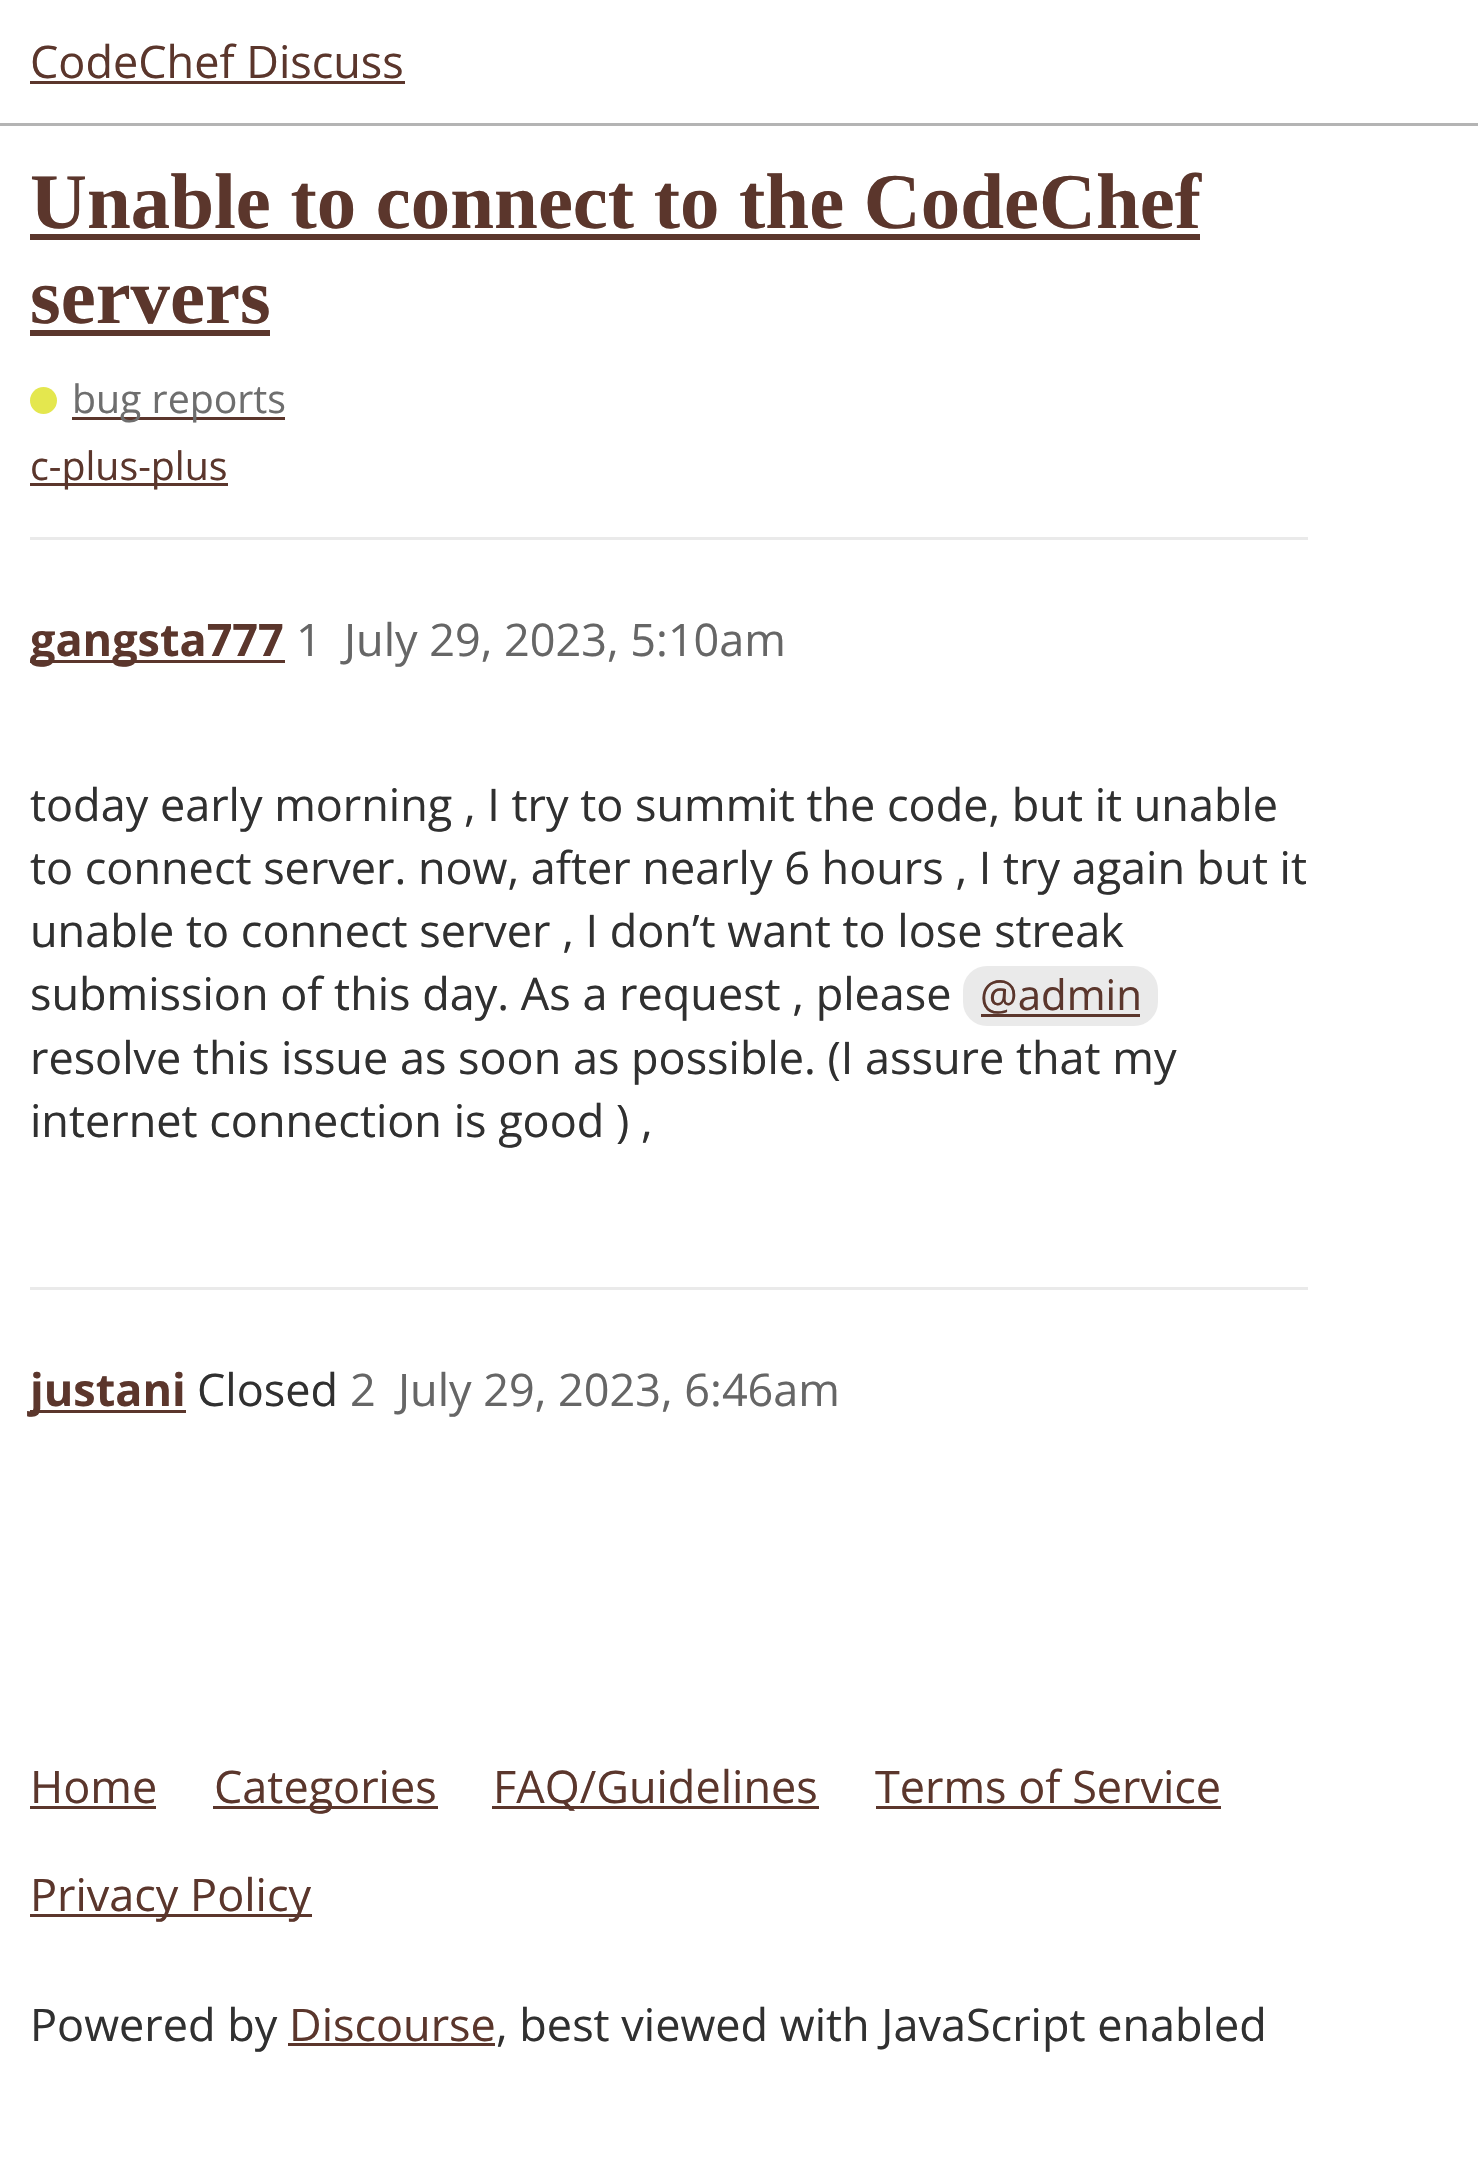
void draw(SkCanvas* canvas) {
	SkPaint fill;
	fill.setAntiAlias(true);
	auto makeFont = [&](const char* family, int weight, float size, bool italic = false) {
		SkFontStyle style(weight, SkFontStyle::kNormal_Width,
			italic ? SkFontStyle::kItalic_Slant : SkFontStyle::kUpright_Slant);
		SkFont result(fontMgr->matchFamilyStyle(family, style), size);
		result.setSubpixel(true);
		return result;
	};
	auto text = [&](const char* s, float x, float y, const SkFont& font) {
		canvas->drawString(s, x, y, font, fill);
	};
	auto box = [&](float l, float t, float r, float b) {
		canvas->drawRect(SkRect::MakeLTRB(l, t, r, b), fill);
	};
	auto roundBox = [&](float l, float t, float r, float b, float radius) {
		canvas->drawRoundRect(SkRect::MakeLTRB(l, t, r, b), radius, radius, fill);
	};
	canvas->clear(0xFFFFFFFF);
	fill.setColor(0xFFB4B4B4);
	box(0, 123, 1478, 126);
	fill.setColor(0xFF5B362C);
	box(30, 81, 405, 84);
	box(30, 234, 1200, 240);
	box(30, 330, 270, 336);
	fill.setColor(0xFFE4E74E);
	canvas->drawCircle(43.5f, 400.5f, 13.5f, fill);
	fill.setColor(0xFF5B362C);
	box(72, 417, 285, 420);
	box(30, 483, 228, 486);
	fill.setColor(0xFFEAEAEA);
	box(30, 537, 1308, 540);
	fill.setColor(0xFF5B362C);
	box(30, 660, 285, 663);
	fill.setColor(0xFFEAEAEA);
	roundBox(963, 966, 1158, 1026, 24);
	fill.setColor(0xFF5B362C);
	box(981, 1014, 1140, 1017);
	fill.setColor(0xFFEAEAEA);
	box(30, 1287, 1308, 1290);
	fill.setColor(0xFF5B362C);
	box(30, 1410, 186, 1413);
	box(30, 1806, 156, 1809);
	box(213, 1806, 438, 1809);
	box(492, 1806, 819, 1809);
	box(876, 1806, 1221, 1809);
	box(30, 1914, 312, 1917);
	box(288, 2043, 495, 2046);
	auto font1 = makeFont("Open Sans", 400, 45);
	text("CodeChef Discuss", 30, 78, font1);
	auto font2 = makeFont("Liberation Serif", 700, 78.8f);
	text("Unable to connect to the CodeChef", 30, 228, font2);
	text("servers", 30, 323, font2);
	auto font3 = makeFont("Open Sans", 400, 39.25f);
	fill.setColor(0xFF6E6E6E);
	text("bug reports", 72, 413, font3);
	fill.setColor(0xFF5B362C);
	text("c-plus-plus", 30, 480, font3);
	auto font4 = makeFont("Open Sans", 700, 45);
	text("gangsta777", 30, 656, font4);
	fill.setColor(0xFF666666);
	text("1", 296, 656, font1);
	text("July 29, 2023, 5:10am", 344, 656, font1);
	fill.setColor(0xFF303030);
	text("today early morning , I try to summit the code, but it unable", 30, 821, font1);
	text("to connect server. now, after nearly 6 hours , I try again but it", 30, 884, font1);
	text("unable to connect server , I don’t want to lose streak", 30, 947, font1);
	text("submission of this day. As a request , please", 30, 1010, font1);
	auto font5 = makeFont("Open Sans", 400, 42);
	fill.setColor(0xFF5B362C);
	text("@admin", 980, 1010, font5);
	fill.setColor(0xFF303030);
	text("resolve this issue as soon as possible. (I assure that my", 30, 1074, font1);
	text("internet connection is good ) ,", 30, 1137, font1);
	fill.setColor(0xFF5B362C);
	text("justani", 30, 1406, font4);
	fill.setColor(0xFF303030);
	text("Closed", 197, 1406, font1);
	fill.setColor(0xFF666666);
	text("2", 350, 1406, font1);
	text("July 29, 2023, 6:46am", 398, 1406, font1);
	fill.setColor(0xFF5B362C);
	text("Home", 30, 1803, font1);
	text("Categories", 214, 1803, font1);
	text("FAQ/Guidelines", 493, 1803, font1);
	text("Terms of Service", 875, 1803, font1);
	text("Privacy Policy", 30, 1911, font1);
	fill.setColor(0xFF303030);
	text("Powered by", 30, 2041, font1);
	fill.setColor(0xFF5B362C);
	text("Discourse", 289, 2041, font1);
	fill.setColor(0xFF303030);
	text(", best viewed with JavaScript enabled", 496, 2041, font1);
}
